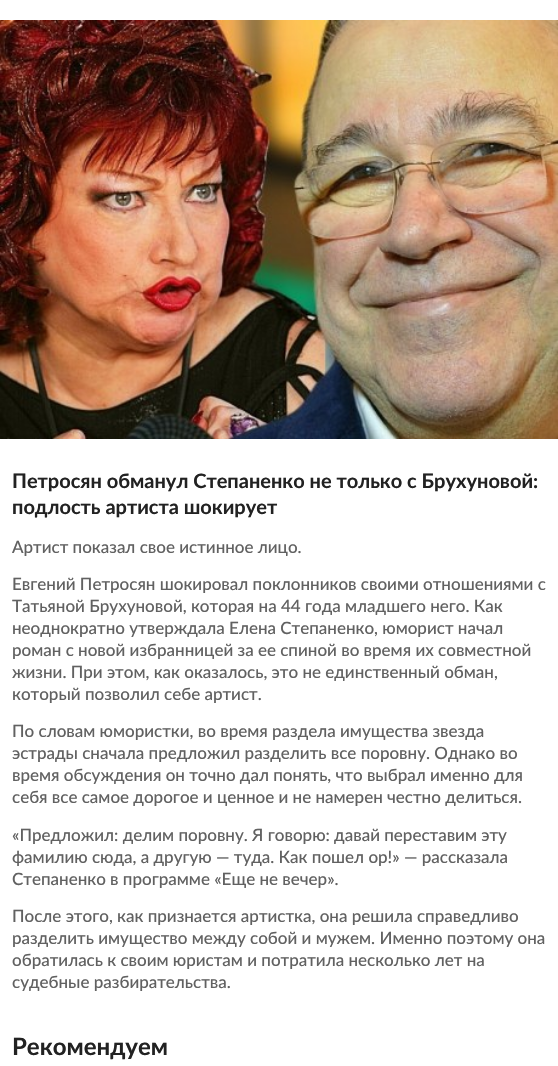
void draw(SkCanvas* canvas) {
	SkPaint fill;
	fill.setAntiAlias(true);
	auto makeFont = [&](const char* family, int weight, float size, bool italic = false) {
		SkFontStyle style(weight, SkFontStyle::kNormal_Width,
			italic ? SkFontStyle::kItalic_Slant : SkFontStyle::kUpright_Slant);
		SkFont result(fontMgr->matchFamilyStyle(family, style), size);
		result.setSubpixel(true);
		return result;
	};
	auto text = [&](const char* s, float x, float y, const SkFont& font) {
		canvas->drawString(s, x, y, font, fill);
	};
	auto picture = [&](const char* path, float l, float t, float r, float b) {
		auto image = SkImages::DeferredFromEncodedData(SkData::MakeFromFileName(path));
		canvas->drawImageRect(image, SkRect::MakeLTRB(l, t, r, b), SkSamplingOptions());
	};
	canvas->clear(0xFFFFFFFF);
	picture("image0.png", 0, 20, 558, 439);
	auto font1 = makeFont("Lato", 700, 20);
	fill.setColor(0xFF222222);
	text("Петросян обманул Степаненко не только с Брухуновой:", 12, 488, font1);
	text("подлость артиста шокирует", 12, 514, font1);
	auto font2 = makeFont("Lato", 500, 17);
	fill.setColor(0xFF616161);
	text("Артист показал свое истинное лицо.", 12, 553, font2);
	text("Евгений Петросян шокировал поклонников своими отношениями с", 12, 590, font2);
	text("Татьяной Брухуновой, которая на 44 года младшего него. Как", 12, 612, font2);
	text("неоднократно утверждала Елена Степаненко, юморист начал", 12, 634, font2);
	text("роман с новой избранницей за ее спиной во время их совместной", 12, 656, font2);
	text("жизни. При этом, как оказалось, это не единственный обман,", 12, 678, font2);
	text("который позволил себе артист.", 12, 700, font2);
	text("По словам юмористки, во время раздела имущества звезда", 12, 737, font2);
	text("эстрады сначала предложил разделить все поровну. Однако во", 12, 759, font2);
	text("время обсуждения он точно дал понять, что выбрал именно для", 12, 781, font2);
	text("себя все самое дорогое и ценное и не намерен честно делиться.", 12, 803, font2);
	text("«Предложил: делим поровну. Я говорю: давай переставим эту", 12, 841, font2);
	text("фамилию сюда, а другую — туда. Как пошел ор!» — рассказала", 12, 863, font2);
	text("Степаненко в программе «Еще не вечер».", 12, 885, font2);
	text("После этого, как признается артистка, она решила справедливо", 12, 922, font2);
	text("разделить имущество между собой и мужем. Именно поэтому она", 12, 944, font2);
	text("обратилась к своим юристам и потратила несколько лет на", 12, 966, font2);
	text("судебные разбирательства.", 12, 988, font2);
	auto font3 = makeFont("Lato", 700, 24);
	fill.setColor(0xFF222222);
	text("Рекомендуем", 12, 1055, font3);
}
